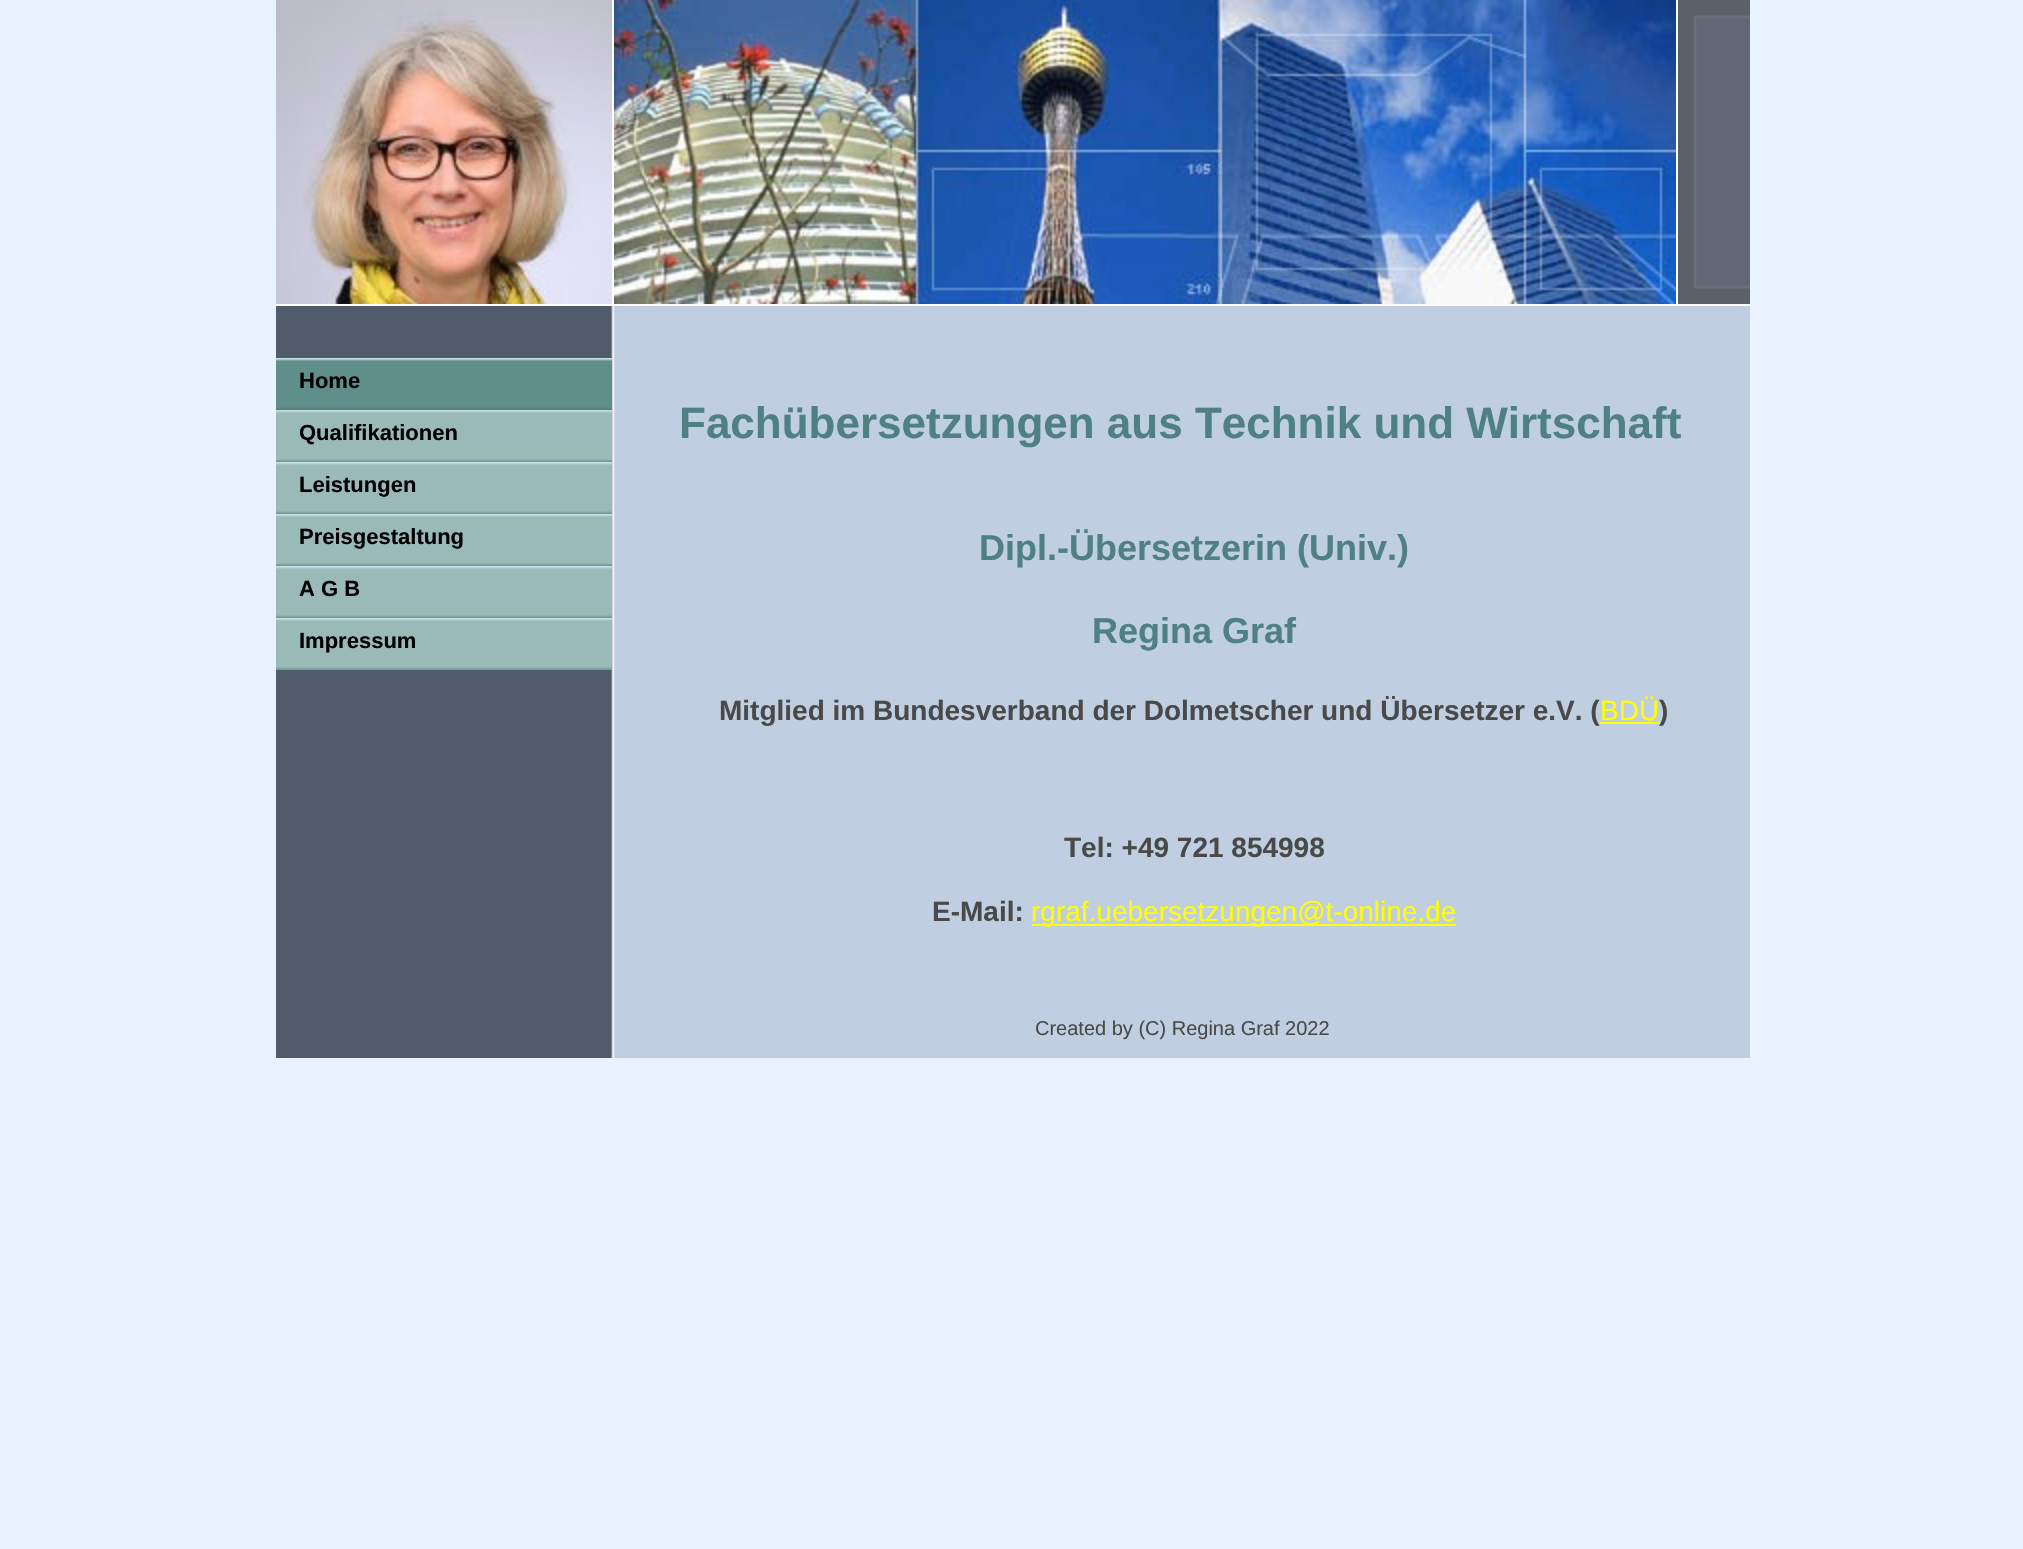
void draw(SkCanvas* canvas) {
	SkPaint fill;
	fill.setAntiAlias(true);
	auto makeFont = [&](const char* family, int weight, float size, bool italic = false) {
		SkFontStyle style(weight, SkFontStyle::kNormal_Width,
			italic ? SkFontStyle::kItalic_Slant : SkFontStyle::kUpright_Slant);
		SkFont result(fontMgr->matchFamilyStyle(family, style), size);
		result.setSubpixel(true);
		return result;
	};
	auto text = [&](const char* s, float x, float y, const SkFont& font) {
		canvas->drawString(s, x, y, font, fill);
	};
	auto box = [&](float l, float t, float r, float b) {
		canvas->drawRect(SkRect::MakeLTRB(l, t, r, b), fill);
	};
	auto picture = [&](const char* path, float l, float t, float r, float b) {
		auto image = SkImages::DeferredFromEncodedData(SkData::MakeFromFileName(path));
		canvas->drawImageRect(image, SkRect::MakeLTRB(l, t, r, b), SkSamplingOptions());
	};
	canvas->clear(0xFFE8F3FF);
	picture("image0.png", 276, 306, 1750, 1058);
	picture("image1.png", 1678, 0, 1750, 304);
	fill.setColor(0xFFFFFFFF);
	box(276, 304, 1750, 306);
	picture("image2.png", 276, 0, 612, 304);
	picture("image3.png", 614, 0, 1676, 304);
	box(1676, 0, 1678, 304);
	box(612, 0, 614, 304);
	picture("image4.png", 276, 358, 612, 410);
	picture("image5.png", 276, 410, 612, 462);
	picture("image5.png", 276, 462, 612, 514);
	picture("image5.png", 276, 514, 612, 566);
	picture("image5.png", 276, 566, 612, 618);
	picture("image5.png", 276, 618, 612, 670);
	fill.setColor(0xFFFFFF00);
	box(1032, 924, 1456, 926);
	auto font1 = makeFont("Liberation Sans", 700, 22);
	fill.setColor(0xFF000000);
	text("Home", 299, 388, font1);
	text("Qualifikationen", 299, 440, font1);
	text("Leistungen", 299, 492, font1);
	text("Preisgestaltung", 299, 544, font1);
	text("A G B", 299, 596, font1);
	text("Impressum", 299, 648, font1);
	auto font2 = makeFont("Liberation Sans", 700, 44);
	fill.setColor(0xFF4E8084);
	text("Fachübersetzungen aus Technik und Wirtschaft", 679, 438, font2);
	auto font3 = makeFont("Liberation Sans", 700, 36);
	text("Dipl.-Übersetzerin (Univ.)", 979, 560, font3);
	text("Regina Graf", 1092, 643, font3);
	auto font4 = makeFont("Liberation Sans", 700, 28);
	fill.setColor(0xFF494949);
	text("Mitglied im Bundesverband der Dolmetscher und Übersetzer e.V. (", 719, 720, font4);
	auto font5 = makeFont("Liberation Sans", 400, 28);
	fill.setColor(0xFFFFFF00);
	text("BDÜ", 1600, 720, font5);
	box(1600, 722, 1660, 724);
	fill.setColor(0xFF494949);
	text(")", 1659, 720, font4);
	text("Tel: +49 721 854998", 1064, 857, font4);
	text("E-Mail:", 932, 921, font4);
	fill.setColor(0xFFFFFF00);
	text("rgraf.uebersetzungen@t-online.de", 1031, 921, font5);
	auto font6 = makeFont("Liberation Sans", 400, 20);
	fill.setColor(0xFF494949);
	text("Created by (C) Regina Graf 2022", 1035, 1035, font6);
}
